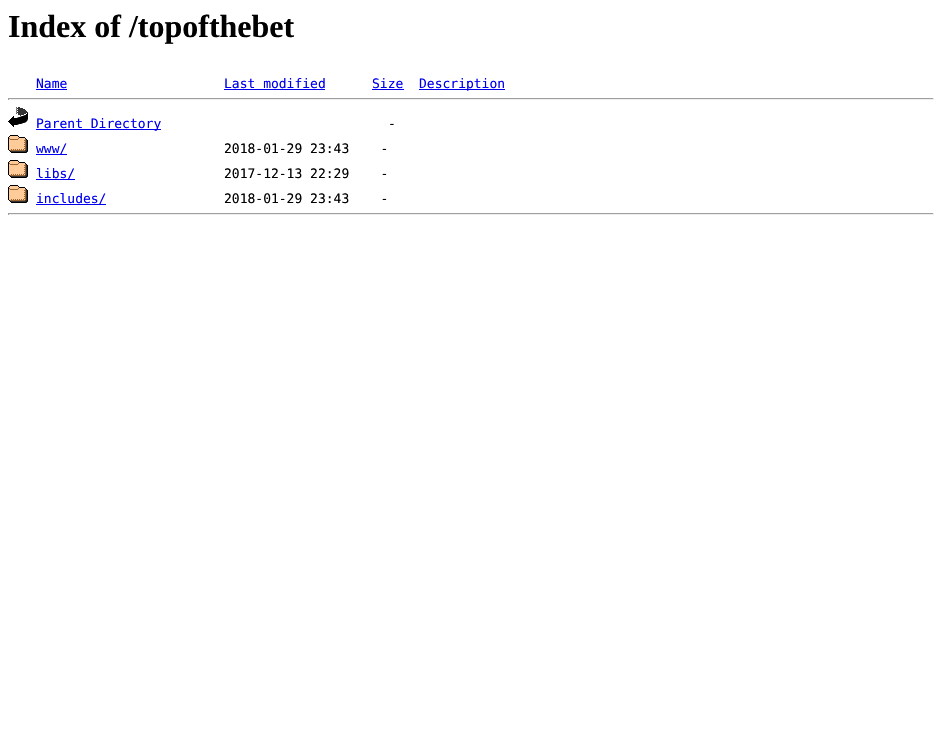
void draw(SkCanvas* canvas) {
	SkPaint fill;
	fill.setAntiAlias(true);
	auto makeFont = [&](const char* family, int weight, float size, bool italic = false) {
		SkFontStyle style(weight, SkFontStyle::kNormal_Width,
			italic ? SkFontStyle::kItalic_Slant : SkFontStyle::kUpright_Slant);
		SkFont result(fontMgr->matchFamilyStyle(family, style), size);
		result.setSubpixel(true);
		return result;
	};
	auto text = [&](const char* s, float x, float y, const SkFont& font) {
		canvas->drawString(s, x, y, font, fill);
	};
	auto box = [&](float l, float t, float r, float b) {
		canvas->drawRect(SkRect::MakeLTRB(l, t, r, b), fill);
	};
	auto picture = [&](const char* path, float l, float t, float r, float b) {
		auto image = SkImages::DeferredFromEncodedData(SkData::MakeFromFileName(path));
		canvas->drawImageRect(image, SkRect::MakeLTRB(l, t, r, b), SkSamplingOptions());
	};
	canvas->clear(0xFFFFFFFF);
	fill.setColor(0xFF0000EE);
	box(36, 89, 67, 90);
	box(224, 89, 325, 90);
	box(372, 89, 404, 90);
	box(419, 89, 505, 90);
	fill.setColor(0xFF9F9F9F);
	box(8, 98, 934, 99);
	fill.setColor(0xFFEEEEEE);
	box(933, 98, 934, 100);
	box(8, 99, 934, 100);
	fill.setColor(0xFF9F9F9F);
	box(8, 98, 9, 100);
	picture("image0.png", 8, 107, 28, 127);
	fill.setColor(0xFF0000EE);
	box(36, 129, 161, 130);
	picture("image1.png", 8, 135, 28, 153);
	box(36, 154, 67, 155);
	picture("image1.png", 8, 160, 28, 178);
	box(36, 179, 75, 180);
	picture("image1.png", 8, 185, 28, 203);
	box(36, 204, 106, 205);
	fill.setColor(0xFF9F9F9F);
	box(8, 213, 934, 214);
	fill.setColor(0xFFEEEEEE);
	box(933, 213, 934, 215);
	box(8, 214, 934, 215);
	fill.setColor(0xFF9F9F9F);
	box(8, 213, 9, 215);
	auto font1 = makeFont("Liberation Serif", 700, 32);
	fill.setColor(0xFF000000);
	text("Index of /topofthebet", 8, 37, font1);
	auto font2 = makeFont("DejaVu Sans Mono", 400, 13);
	fill.setColor(0xFF0000EE);
	text("Name", 36, 88, font2);
	text("Last modified", 224, 88, font2);
	text("Size", 372, 88, font2);
	text("Description", 419, 88, font2);
	text("Parent Directory", 36, 128, font2);
	fill.setColor(0xFF000000);
	text("-", 388, 128, font2);
	fill.setColor(0xFF0000EE);
	text("www/", 36, 153, font2);
	fill.setColor(0xFF000000);
	text("2018-01-29 23:43    -", 224, 153, font2);
	fill.setColor(0xFF0000EE);
	text("libs/", 36, 178, font2);
	fill.setColor(0xFF000000);
	text("2017-12-13 22:29    -", 224, 178, font2);
	fill.setColor(0xFF0000EE);
	text("includes/", 36, 203, font2);
	fill.setColor(0xFF000000);
	text("2018-01-29 23:43    -", 224, 203, font2);
}
